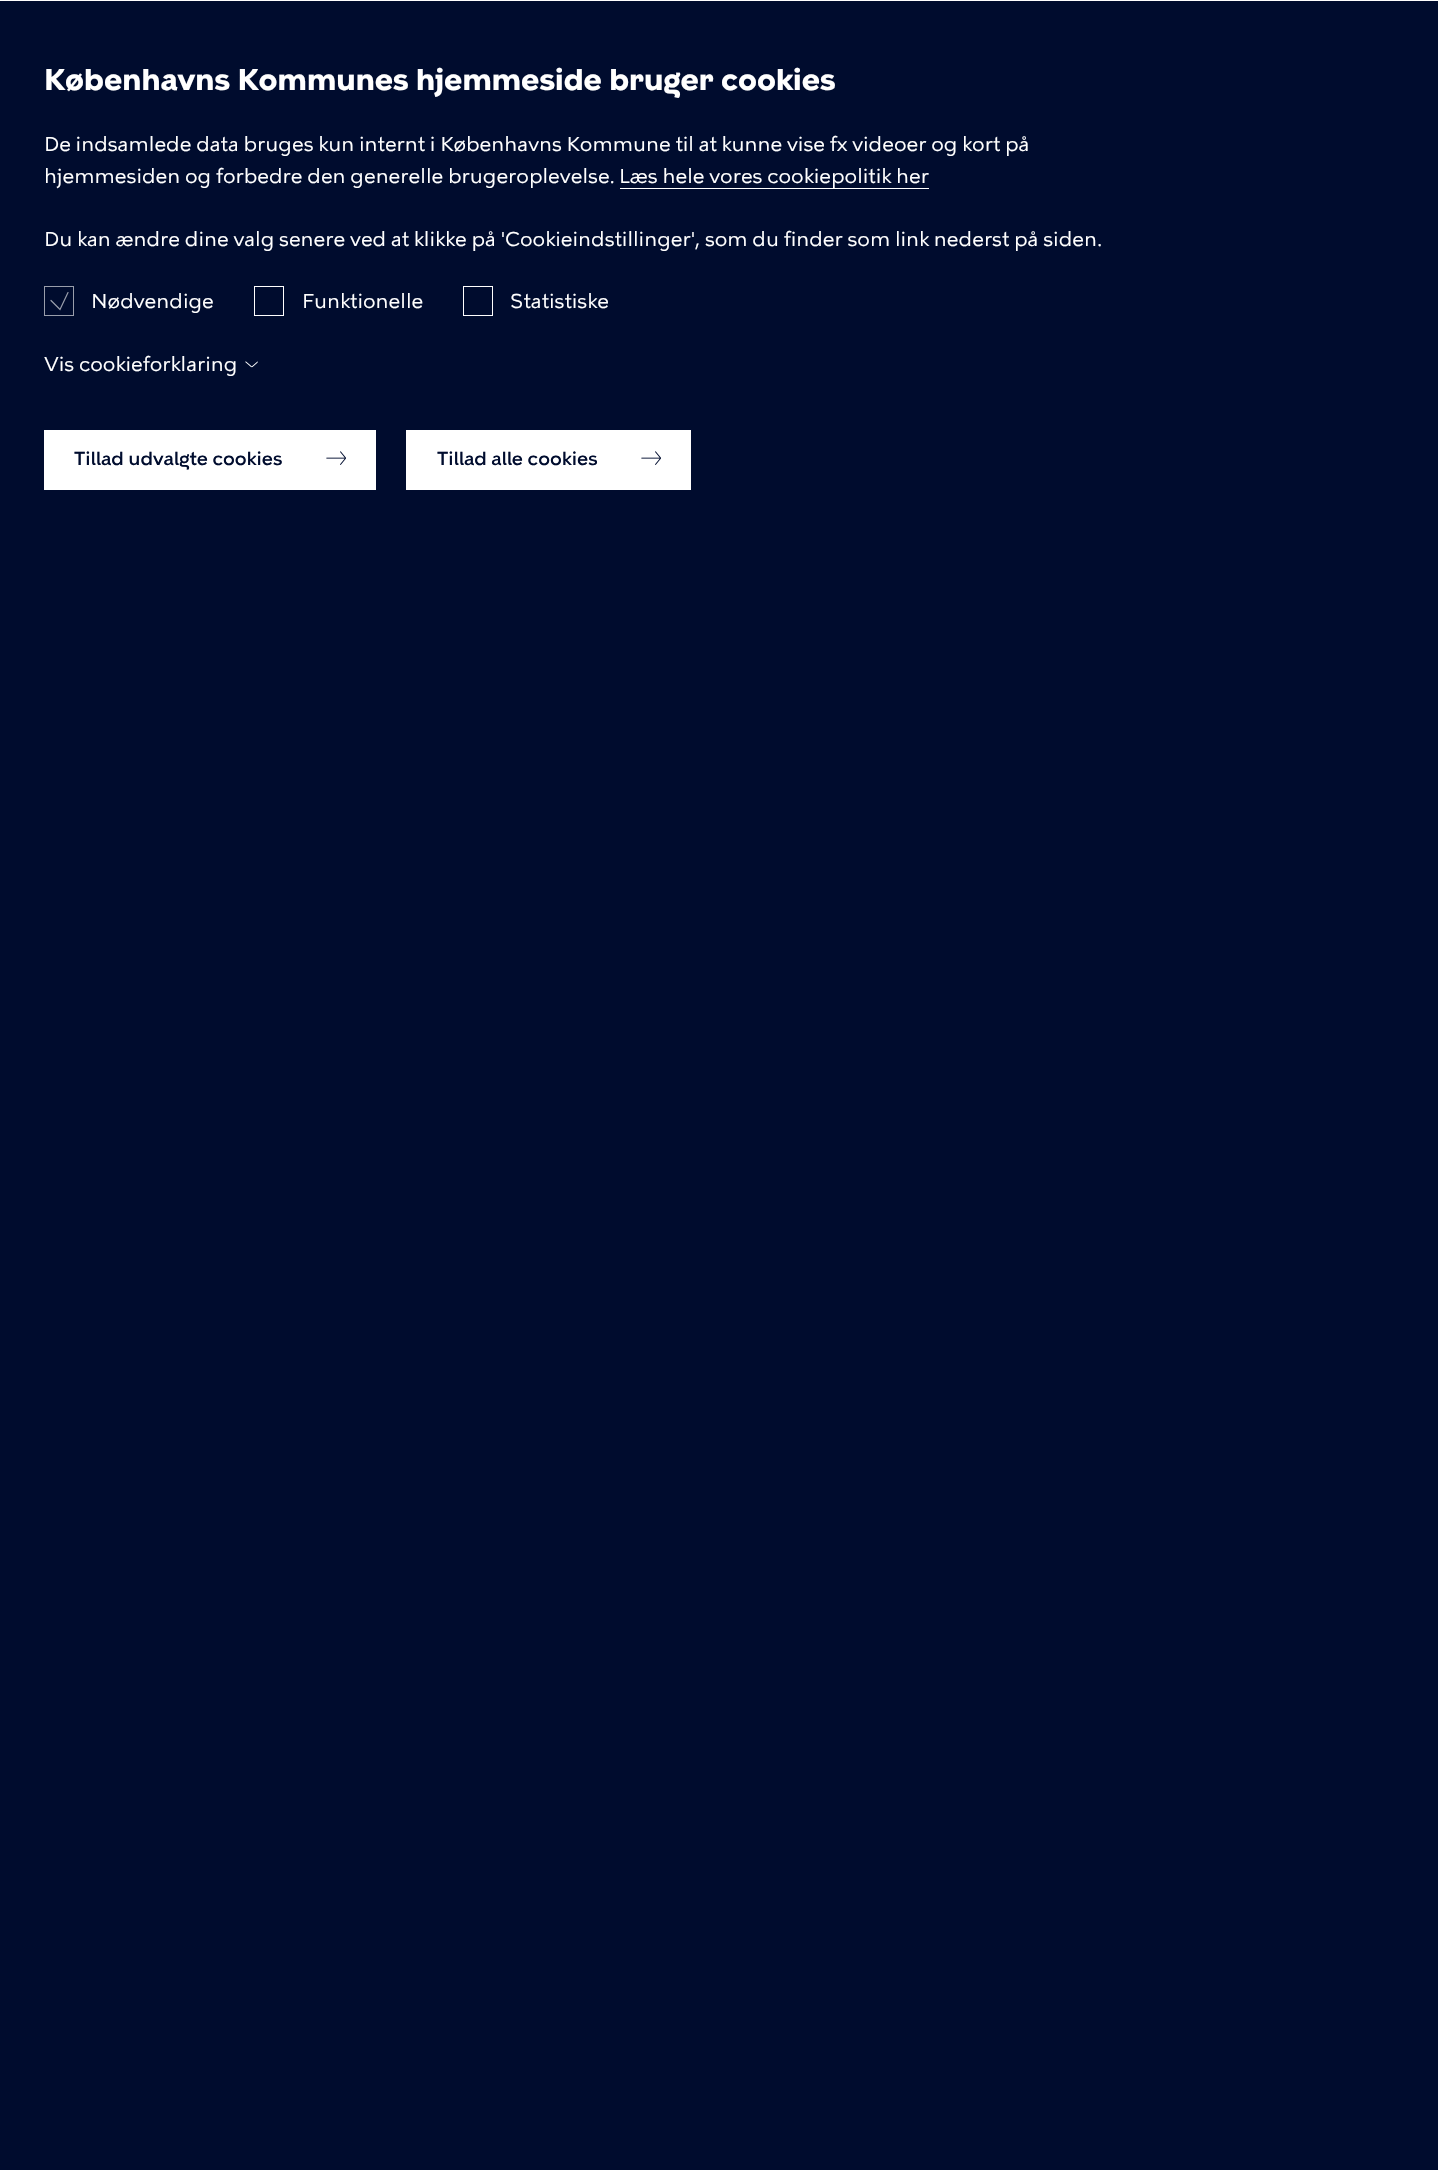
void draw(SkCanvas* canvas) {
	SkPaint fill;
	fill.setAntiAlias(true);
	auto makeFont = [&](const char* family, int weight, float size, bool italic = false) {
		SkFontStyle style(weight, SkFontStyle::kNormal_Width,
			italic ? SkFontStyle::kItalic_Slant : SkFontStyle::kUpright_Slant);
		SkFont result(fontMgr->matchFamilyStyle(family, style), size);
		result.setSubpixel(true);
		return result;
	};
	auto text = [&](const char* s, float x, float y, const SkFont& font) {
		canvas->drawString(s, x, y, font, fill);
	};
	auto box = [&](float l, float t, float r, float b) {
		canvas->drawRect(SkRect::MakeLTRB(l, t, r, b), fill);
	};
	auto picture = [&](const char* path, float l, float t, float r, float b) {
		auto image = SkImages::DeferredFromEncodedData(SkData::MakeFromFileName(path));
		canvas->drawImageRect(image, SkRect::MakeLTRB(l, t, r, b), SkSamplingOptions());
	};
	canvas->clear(0xFFFFFFFF);
	fill.setColor(0xFF000C2E);
	box(0, 1, 1438, 2170);
	fill.setColor(0xFFFFFFFF);
	box(620, 188, 929, 189);
	fill.setStyle(SkPaint::kStroke_Style);
	fill.setStrokeWidth(1);
	fill.setColor(0xFF999EAB);
	canvas->drawRect(SkRect::MakeLTRB(44.5f, 286.5f, 73.5f, 315.5f), fill);
	fill.setStrokeWidth(1.2f);
	fill.setStrokeCap(SkPaint::kRound_Cap);
	canvas->drawPath(SkPathBuilder().moveTo(51, 300.5f).lineTo(60, 309.5f).lineTo(68, 292.5f).detach(), fill);
	fill.setStrokeWidth(1);
	fill.setStrokeCap(SkPaint::kButt_Cap);
	fill.setColor(0xFFFFFFFF);
	canvas->drawRect(SkRect::MakeLTRB(254.5f, 286.5f, 283.5f, 315.5f), fill);
	canvas->drawRect(SkRect::MakeLTRB(463.5f, 286.5f, 492.5f, 315.5f), fill);
	picture("image0.png", 245, 361, 258, 368);
	fill.setStyle(SkPaint::kFill_Style);
	box(44, 430, 376, 490);
	picture("image1.png", 326, 451, 346, 465);
	box(406, 430, 691, 490);
	picture("image1.png", 641, 451, 661, 465);
	auto font1 = makeFont("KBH", 700, 30);
	text("Københavns Kommunes hjemmeside bruger cookies", 44, 90, font1);
	auto font2 = makeFont("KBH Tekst", 400, 20);
	text("De indsamlede data bruges kun internt i Københavns Kommune til at kunne vise fx videoer og kort på", 44, 151, font2);
	text("hjemmesiden og forbedre den generelle brugeroplevelse.", 44, 183, font2);
	text("Læs hele vores cookiepolitik her", 619, 183, font2);
	text("Du kan ændre dine valg senere ved at klikke på 'Cookieindstillinger', som du finder som link nederst på siden.", 44, 246, font2);
	text("Nødvendige", 91, 308, font2);
	text("Funktionelle", 302, 308, font2);
	text("Statistiske", 510, 308, font2);
	text("Vis cookieforklaring", 44, 371, font2);
	auto font3 = makeFont("KBH", 500, 18.75f);
	fill.setColor(0xFF000C2E);
	text("Tillad udvalgte cookies", 74, 465, font3);
	text("Tillad alle cookies", 437, 465, font3);
}
